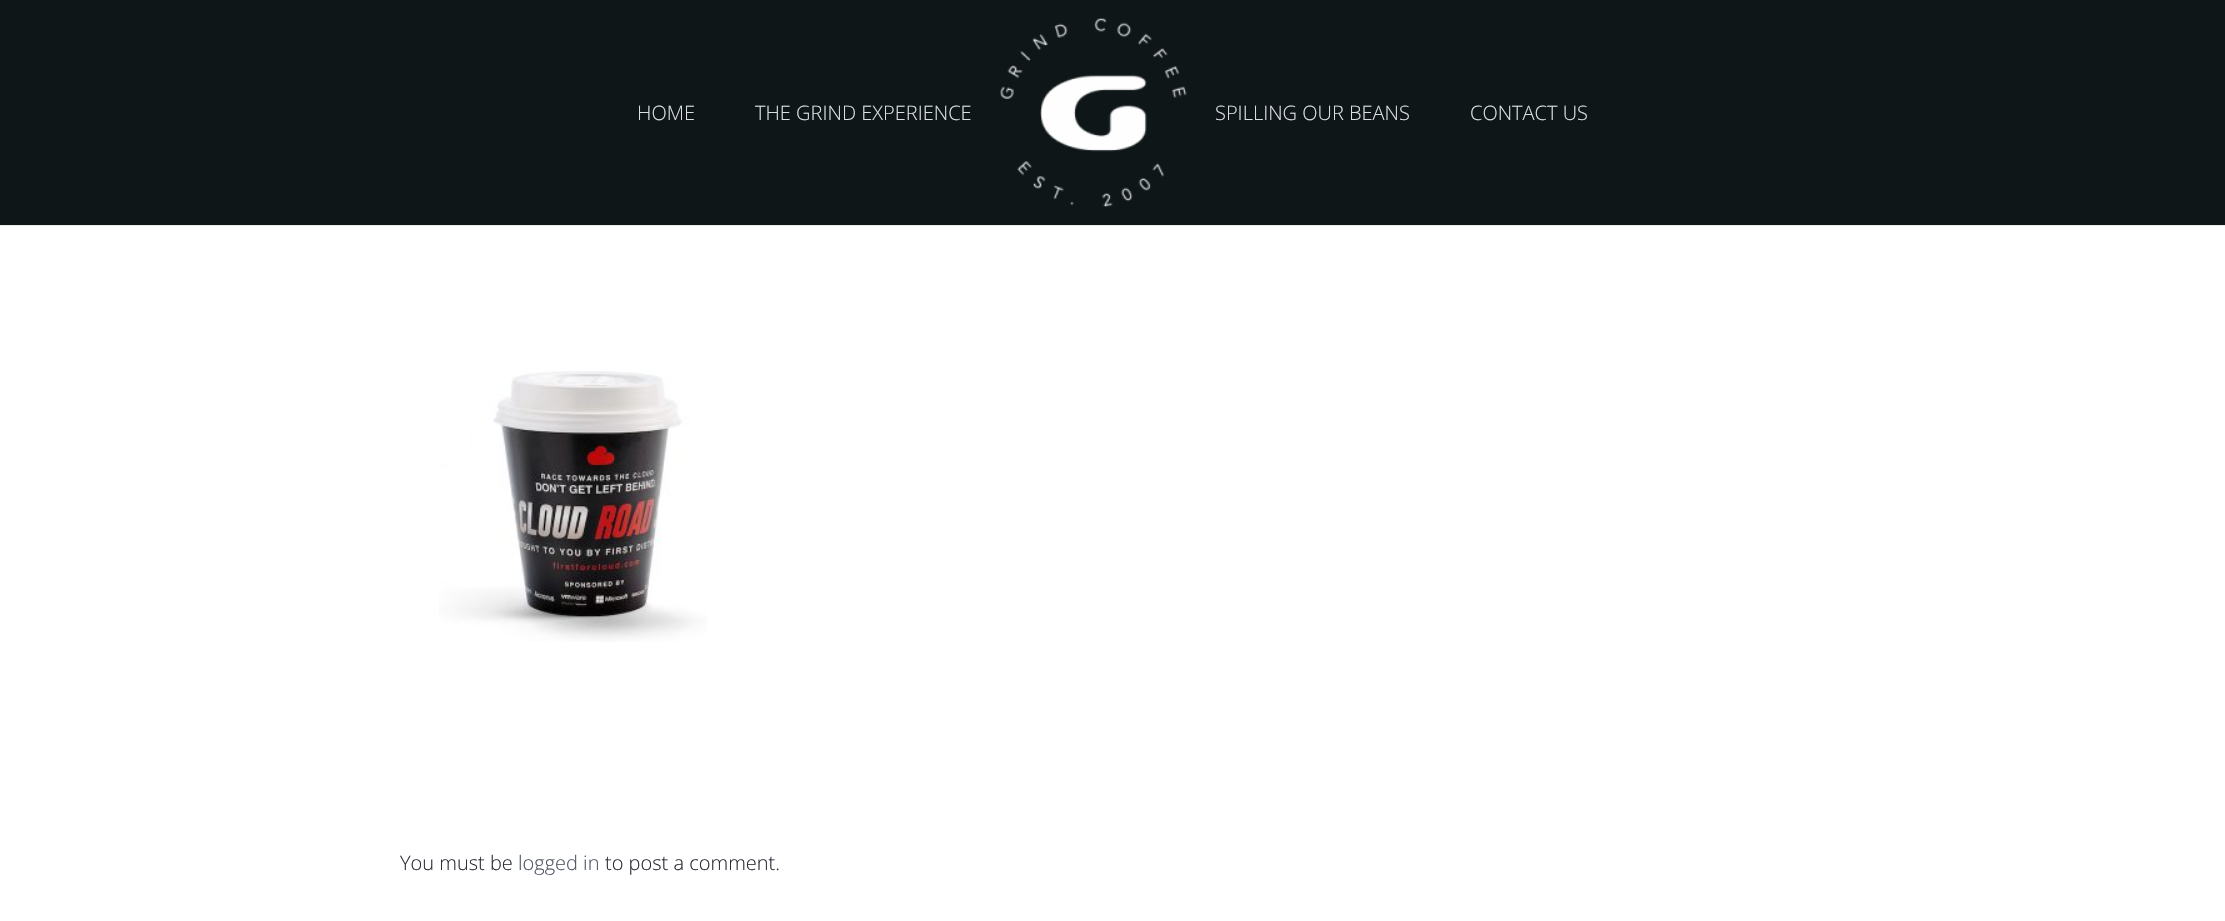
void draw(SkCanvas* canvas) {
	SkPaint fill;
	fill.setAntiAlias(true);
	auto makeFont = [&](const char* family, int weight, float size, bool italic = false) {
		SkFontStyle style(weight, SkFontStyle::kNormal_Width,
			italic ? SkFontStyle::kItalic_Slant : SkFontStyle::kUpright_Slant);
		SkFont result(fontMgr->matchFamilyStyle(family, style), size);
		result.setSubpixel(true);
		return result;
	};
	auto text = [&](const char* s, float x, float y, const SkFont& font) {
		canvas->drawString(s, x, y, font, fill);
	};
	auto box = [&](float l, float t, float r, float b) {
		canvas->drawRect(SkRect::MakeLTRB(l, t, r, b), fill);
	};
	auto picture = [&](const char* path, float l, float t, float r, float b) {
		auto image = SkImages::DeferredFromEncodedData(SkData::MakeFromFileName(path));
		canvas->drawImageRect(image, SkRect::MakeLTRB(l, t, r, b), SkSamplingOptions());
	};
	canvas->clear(0xFFFFFFFF);
	fill.setColor(0xFFEBEBEB);
	box(0, 225, 2225, 226);
	fill.setColor(0xFF0E1617);
	box(0, 0, 2225, 225);
	picture("image0.png", 1000, 18, 1187, 207);
	picture("image1.png", 439, 371, 707, 642);
	auto font1 = makeFont("Open Sans", 300, 20);
	fill.setColor(0xFFDCDFE6);
	text("HOME", 637, 120, font1);
	text("THE GRIND EXPERIENCE", 755, 120, font1);
	text("SPILLING OUR BEANS", 1215, 120, font1);
	text("CONTACT US", 1470, 120, font1);
	fill.setColor(0xFF2B2C36);
	text("You must be", 400, 870, font1);
	fill.setColor(0xFF4E5663);
	text("logged in", 518, 870, font1);
	fill.setColor(0xFF2B2C36);
	text("to post a comment.", 605, 870, font1);
}
